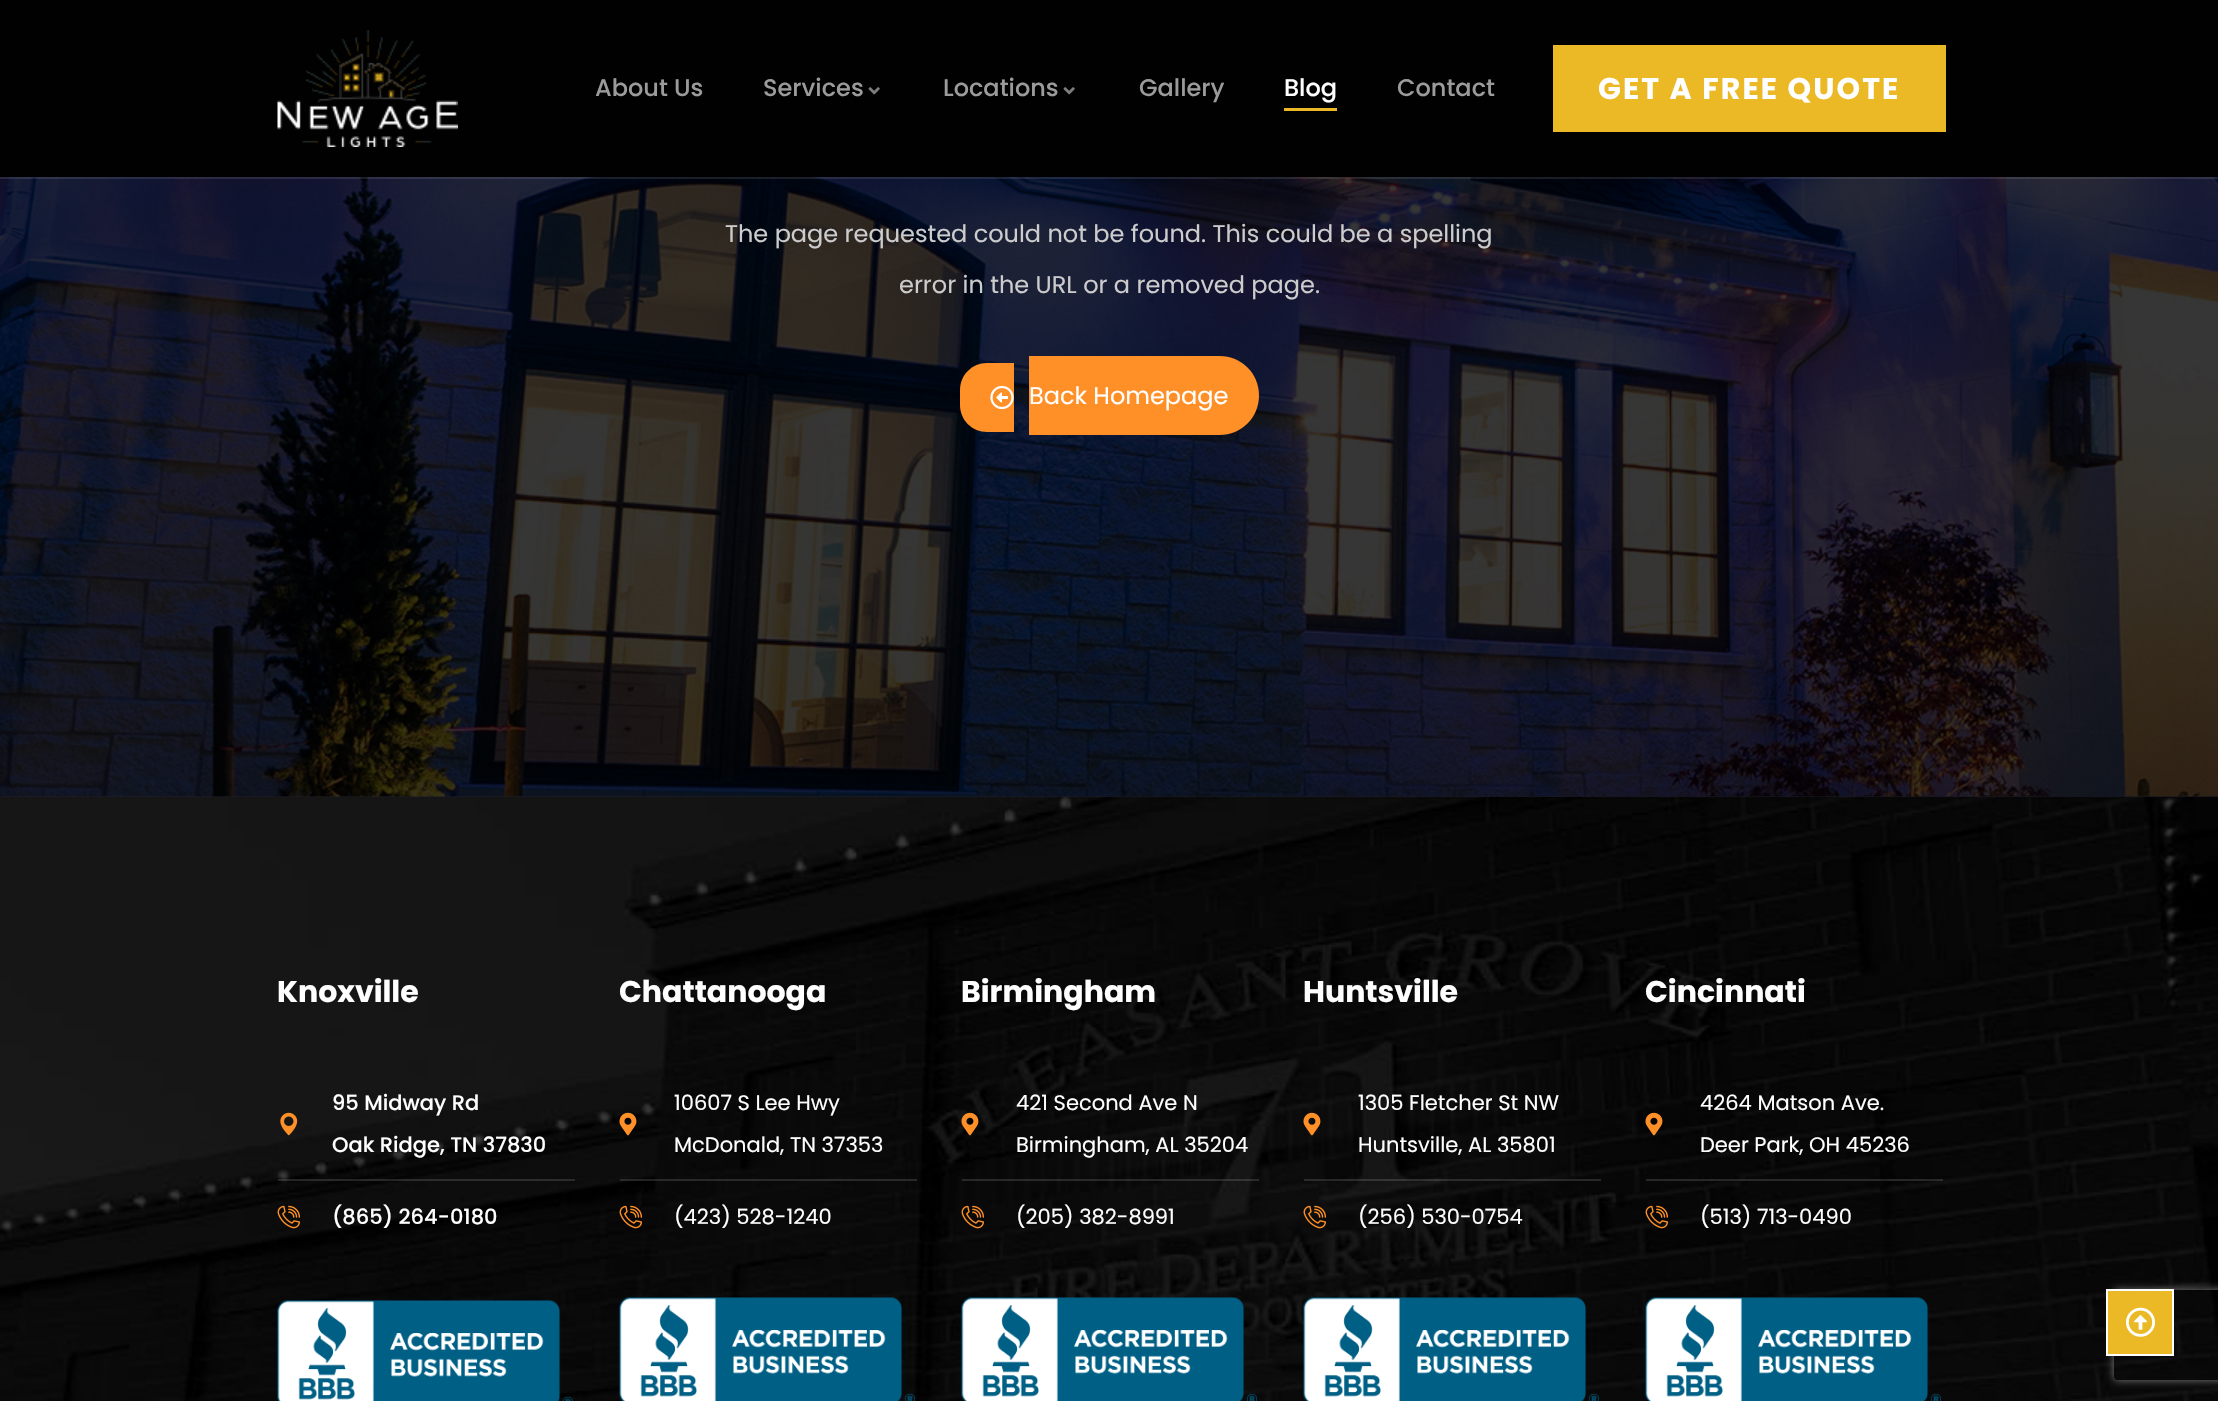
void draw(SkCanvas* canvas) {
	SkPaint fill;
	fill.setAntiAlias(true);
	auto makeFont = [&](const char* family, int weight, float size, bool italic = false) {
		SkFontStyle style(weight, SkFontStyle::kNormal_Width,
			italic ? SkFontStyle::kItalic_Slant : SkFontStyle::kUpright_Slant);
		SkFont result(fontMgr->matchFamilyStyle(family, style), size);
		result.setSubpixel(true);
		return result;
	};
	auto text = [&](const char* s, float x, float y, const SkFont& font) {
		canvas->drawString(s, x, y, font, fill);
	};
	auto spacedText = [&](const char* s, float x, float y, const SkFont& font, const SkPaint& ink, float letter, float word) {
		std::vector<SkGlyphID> glyphs(font.countText(s, strlen(s), SkTextEncoding::kUTF8));
		std::vector<float> xs(glyphs.size());
		font.textToGlyphs(s, strlen(s), SkTextEncoding::kUTF8, glyphs);
		font.getXPos(glyphs, xs, x);
		float extra = 0;
		for (size_t i = 0; i < glyphs.size(); i++) {
			xs[i] += extra;
			extra += letter + word * (glyphs[i] == font.unicharToGlyph(' '));
		}
		canvas->drawTextBlob(SkTextBlob::MakeFromPosHGlyphs(glyphs, xs, y, font), 0, 0, ink);
	};
	auto box = [&](float l, float t, float r, float b) {
		canvas->drawRect(SkRect::MakeLTRB(l, t, r, b), fill);
	};
	auto picture = [&](const char* path, float l, float t, float r, float b) {
		auto image = SkImages::DeferredFromEncodedData(SkData::MakeFromFileName(path));
		canvas->drawImageRect(image, SkRect::MakeLTRB(l, t, r, b), SkSamplingOptions());
	};
	canvas->clear(0xFF1F2230);
	picture("image2.png", 0, 177, 2218, 797);
	fill.setColor(0x1AFFFFFF);
	canvas->drawPath(SkPathBuilder().moveTo(0, 177).lineTo(0, 179).lineTo(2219, 179).lineTo(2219, 2).lineTo(2218, 2).lineTo(2218, 177).close().detach(), fill);
	fill.setColor(0xFF020101);
	box(0, 0, 2218, 177);
	picture("image0.png", 277, 30, 458, 147);
	picture("image1.png", 868, 87, 880, 95);
	picture("image1.png", 1063, 87, 1075, 95);
	fill.setColor(0xFFECB926);
	box(1284, 108, 1337, 111);
	box(1553, 45, 1946, 132);
	fill.setColor(0xFFFF8F27);
	canvas->drawPath(SkPathBuilder().moveTo(987, 363).lineTo(1014, 363).lineTo(1014, 432).lineTo(987, 432).cubicTo(972, 432, 960, 420, 960, 405).lineTo(960, 390).cubicTo(960, 375, 972, 363, 987, 363).close().detach(), fill);
	canvas->drawPath(SkPathBuilder().moveTo(1029, 356).lineTo(1219.5f, 356).cubicTo(1241.5f, 356, 1259, 373.5f, 1259, 395.5f).cubicTo(1259, 417.5f, 1241.5f, 435, 1219.5f, 435).lineTo(1029, 435).close().detach(), fill);
	picture("image3.png", 990, 385, 1014, 410);
	picture("image4.png", 0, 796, 2218, 1401);
	picture("image5.png", 280, 1112, 298, 1136);
	fill.setColor(0x21FFFFFF);
	box(278, 1179, 575, 1181);
	picture("image6.png", 277, 1205, 300, 1229);
	picture("image7.png", 277, 1300, 573, 1401);
	picture("image8.png", 619, 1112, 637, 1136);
	box(620, 1179, 917, 1181);
	picture("image9.png", 619, 1205, 642, 1229);
	picture("image10.png", 619, 1297, 915, 1401);
	picture("image11.png", 961, 1112, 979, 1136);
	box(962, 1179, 1259, 1181);
	picture("image12.png", 961, 1205, 984, 1229);
	picture("image13.png", 961, 1297, 1257, 1401);
	picture("image14.png", 1303, 1112, 1321, 1136);
	box(1304, 1179, 1601, 1181);
	picture("image15.png", 1303, 1205, 1326, 1229);
	picture("image16.png", 1303, 1297, 1599, 1401);
	picture("image17.png", 1645, 1112, 1663, 1136);
	box(1646, 1179, 1943, 1181);
	picture("image18.png", 1645, 1205, 1668, 1229);
	picture("image19.png", 1645, 1297, 1941, 1401);
	canvas->save();
	canvas->clipPath(SkPathBuilder(SkPathFillType::kEvenOdd).moveTo(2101, 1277).lineTo(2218, 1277).lineTo(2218, 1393).lineTo(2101, 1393).close().moveTo(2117, 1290).lineTo(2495, 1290).cubicTo(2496.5f, 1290, 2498, 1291.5f, 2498, 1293).lineTo(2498, 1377).cubicTo(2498, 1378.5f, 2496.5f, 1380, 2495, 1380).lineTo(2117, 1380).cubicTo(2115.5f, 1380, 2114, 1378.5f, 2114, 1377).lineTo(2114, 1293).cubicTo(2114, 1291.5f, 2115.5f, 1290, 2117, 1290).close().detach(), true);
	fill.setColor(0xFF808080);
	fill.setMaskFilter(SkMaskFilter::MakeBlur(kNormal_SkBlurStyle, 4));
	canvas->drawRoundRect(SkRect::MakeLTRB(2114, 1290, 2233, 1380), 3, 3, fill);
	fill.setMaskFilter(nullptr);
	canvas->restore();
	fill.setColor(0xFFECB926);
	canvas->drawRect(SkRect::MakeLTRB(2107, 1290, 2173, 1355), fill);
	fill.setStyle(SkPaint::kStroke_Style);
	fill.setStrokeWidth(2);
	fill.setColor(0xFFFFFFFF);
	canvas->drawRect(SkRect::MakeLTRB(2107, 1290, 2173, 1355), fill);
	picture("image20.png", 2126, 1307, 2155, 1337);
	auto font1 = makeFont("Poppins", 500, 24);
	fill.setStyle(SkPaint::kFill_Style);
	fill.setColor(0xFF9B9B9B);
	text("About Us", 595, 96, font1);
	text("Services", 763, 96, font1);
	text("Locations", 943, 96, font1);
	text("Gallery", 1139, 96, font1);
	fill.setColor(0xFFFFFFFF);
	text("Blog", 1284, 96, font1);
	fill.setColor(0xFF9B9B9B);
	text("Contact", 1397, 96, font1);
	auto font2 = makeFont("Poppins", 700, 30);
	fill.setColor(0xFFFFFFFF);
	spacedText("GET A FREE QUOTE", 1598, 99, font2, fill, 2.1f, 0);
	auto font3 = makeFont("Poppins", 400, 24);
	fill.setColor(0xFFCCCCCC);
	text("The page requested could not be found. This could be a spelling", 725, 242, font3);
	text("error in the URL or a removed page.", 899, 293, font3);
	fill.setColor(0xFFFFFFFF);
	text("Back Homepage", 1029, 404, font3);
	text("Knoxville", 277, 1002, font2);
	auto font4 = makeFont("Poppins", 500, 21);
	text("95 Midway Rd", 332, 1110, font4);
	text("Oak Ridge, TN 37830", 332, 1152, font4);
	text("(865) 264-0180", 332, 1224, font4);
	text("Chattanooga", 619, 1002, font2);
	auto font5 = makeFont("Poppins", 400, 21);
	text("10607 S Lee Hwy", 674, 1110, font5);
	text("McDonald, TN 37353", 674, 1152, font5);
	text("(423) 528-1240", 674, 1224, font5);
	text("Birmingham", 961, 1002, font2);
	text("421 Second Ave N", 1016, 1110, font5);
	text("Birmingham, AL 35204", 1016, 1152, font5);
	text("(205) 382-8991", 1016, 1224, font5);
	text("Huntsville", 1303, 1002, font2);
	text("1305 Fletcher St NW", 1358, 1110, font5);
	text("Huntsville, AL 35801", 1358, 1152, font5);
	text("(256) 530-0754", 1358, 1224, font5);
	text("Cincinnati", 1645, 1002, font2);
	text("4264 Matson Ave.", 1700, 1110, font5);
	text("Deer Park, OH 45236", 1700, 1152, font5);
	text("(513) 713-0490", 1700, 1224, font5);
}
